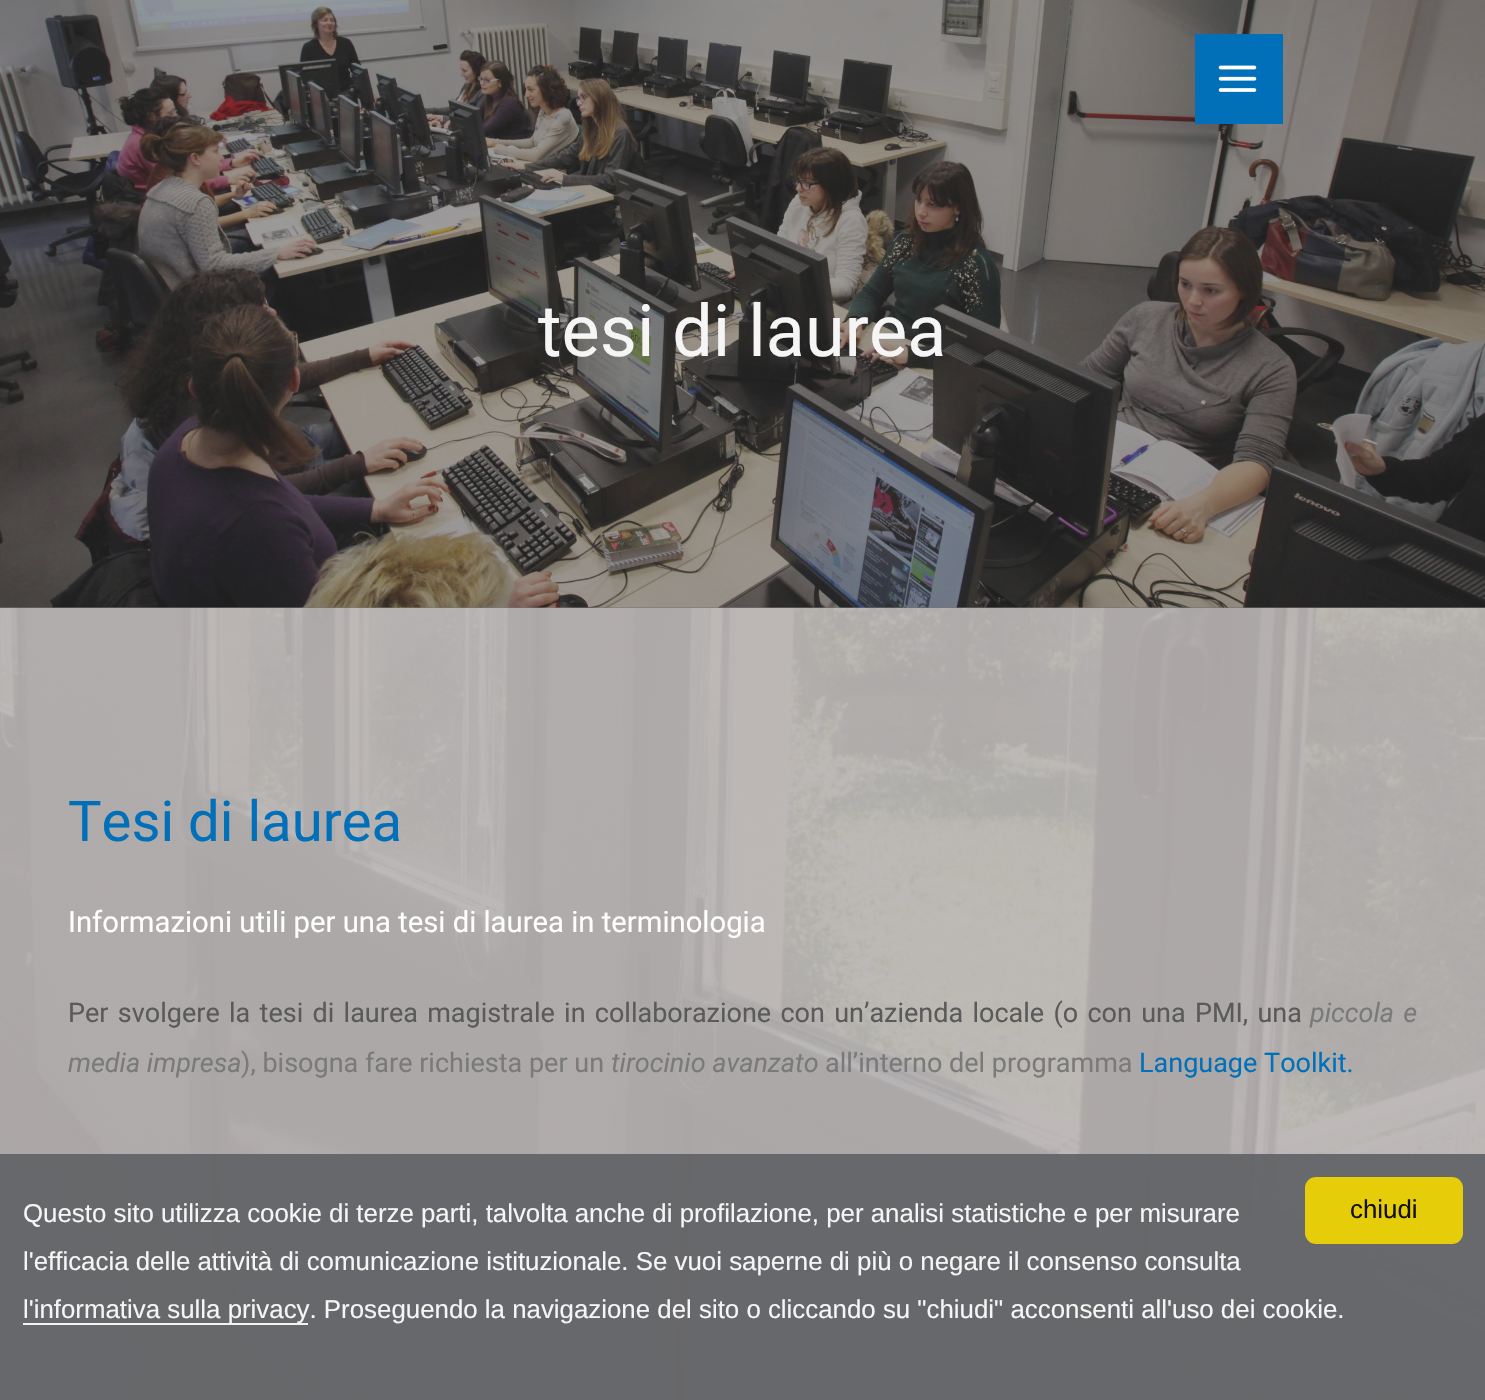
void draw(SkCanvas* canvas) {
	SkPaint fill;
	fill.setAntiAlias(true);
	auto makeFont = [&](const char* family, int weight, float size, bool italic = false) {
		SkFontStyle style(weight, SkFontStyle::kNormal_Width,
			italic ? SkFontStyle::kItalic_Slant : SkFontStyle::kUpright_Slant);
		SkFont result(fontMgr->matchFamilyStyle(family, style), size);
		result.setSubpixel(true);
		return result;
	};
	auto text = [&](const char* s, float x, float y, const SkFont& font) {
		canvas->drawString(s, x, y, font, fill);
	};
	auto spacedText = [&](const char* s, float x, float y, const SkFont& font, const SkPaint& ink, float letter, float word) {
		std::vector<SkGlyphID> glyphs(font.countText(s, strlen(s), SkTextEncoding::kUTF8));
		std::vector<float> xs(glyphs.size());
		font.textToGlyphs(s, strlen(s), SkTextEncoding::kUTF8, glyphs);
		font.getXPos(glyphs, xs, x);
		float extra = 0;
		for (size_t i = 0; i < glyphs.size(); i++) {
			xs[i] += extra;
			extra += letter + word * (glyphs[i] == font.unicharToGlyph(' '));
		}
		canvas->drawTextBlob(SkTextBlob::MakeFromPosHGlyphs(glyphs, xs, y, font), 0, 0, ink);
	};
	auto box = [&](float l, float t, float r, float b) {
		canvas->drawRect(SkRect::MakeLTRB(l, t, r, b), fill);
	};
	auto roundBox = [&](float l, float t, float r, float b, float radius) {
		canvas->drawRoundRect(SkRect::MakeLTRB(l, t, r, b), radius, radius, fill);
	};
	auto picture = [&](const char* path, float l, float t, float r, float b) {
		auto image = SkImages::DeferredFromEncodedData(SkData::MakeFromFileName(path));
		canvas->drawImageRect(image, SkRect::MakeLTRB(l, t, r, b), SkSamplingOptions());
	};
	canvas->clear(0xFFFFFFFF);
	picture("image0.png", 0, 607, 1485, 1400);
	picture("image2.png", 0, 0, 1485, 608);
	fill.setColor(0x803A3A3A);
	box(0, 0, 1485, 608);
	fill.setColor(0xFF0170B9);
	box(1195, 34, 1283, 124);
	picture("image1.png", 1218, 65, 1257, 92);
	fill.setColor(0xEB616265);
	box(0, 1154, 1485, 1400);
	fill.setColor(0xFFF3F3F3);
	box(23, 1323, 308, 1325);
	fill.setColor(0xFFE6CD09);
	roundBox(1305, 1177, 1463, 1244, 11);
	auto font1 = makeFont("Roboto", 400, 72);
	fill.setColor(0xFFF5F5F5);
	text("tesi di laurea", 538, 356, font1);
	auto font2 = makeFont("Roboto", 400, 56.25f);
	fill.setColor(0xFF0170B9);
	text("Tesi di laurea", 68, 841, font2);
	auto font3 = makeFont("Roboto", 400, 29.25f);
	fill.setColor(0xFFFFFFFF);
	text("Informazioni utili per una tesi di laurea in terminologia", 68, 932, font3);
	auto font4 = makeFont("Roboto", 400, 27);
	fill.setColor(0xFF5A5A5A);
	spacedText("Per svolgere la tesi di laurea magistrale in collaborazione con un’azienda locale (o con una PMI, una", 68, 1022, font4, fill, 0, 2.6f);
	auto font5 = makeFont("Roboto", 400, 27, true);
	fill.setColor(0xFF7A7A7A);
	spacedText("piccola e", 1310, 1022, font5, fill, 0, 2.6f);
	text("media impresa", 68, 1072, font5);
	text("), bisogna fare richiesta per un", 241, 1072, font4);
	text("tirocinio avanzato", 611, 1072, font5);
	text("all’interno del programma", 825, 1072, font4);
	fill.setColor(0xFF0170B9);
	text("Language Toolkit.", 1139, 1072, font4);
	auto font6 = makeFont("Liberation Sans", 400, 25.85f);
	fill.setColor(0xFFF5F5F5);
	text("Questo sito utilizza cookie di terze parti, talvolta anche di profilazione, per analisi statistiche e per misurare", 23, 1222, font6);
	text("l'efficacia delle attività di comunicazione istituzionale. Se vuoi saperne di più o negare il consenso consulta", 23, 1270, font6);
	text("l'informativa sulla privacy. Proseguendo la navigazione del sito o cliccando su \"chiudi\" acconsenti all'uso dei cookie.", 23, 1318, font6);
	fill.setColor(0xFF121001);
	text("chiudi", 1350, 1218, font6);
}
